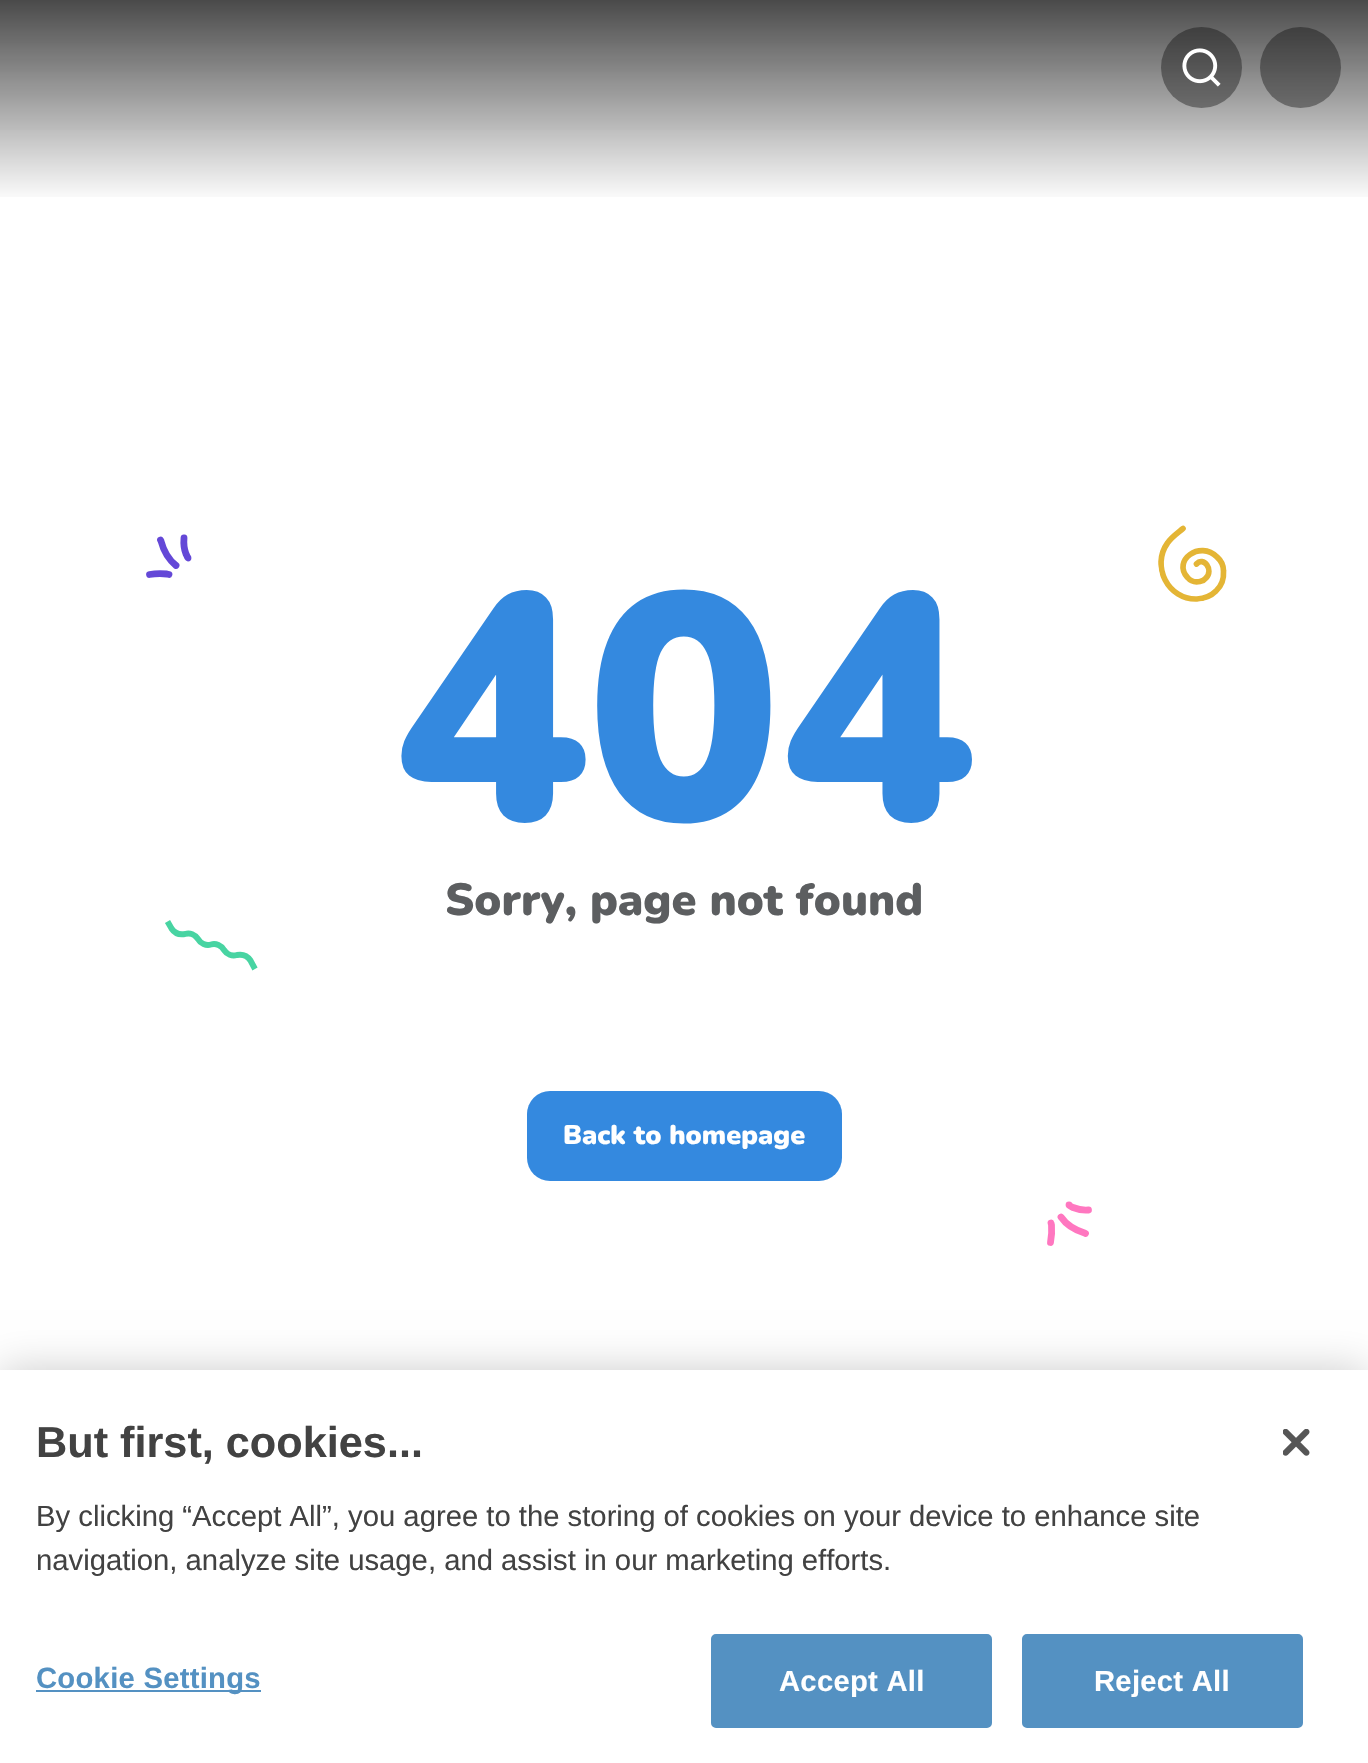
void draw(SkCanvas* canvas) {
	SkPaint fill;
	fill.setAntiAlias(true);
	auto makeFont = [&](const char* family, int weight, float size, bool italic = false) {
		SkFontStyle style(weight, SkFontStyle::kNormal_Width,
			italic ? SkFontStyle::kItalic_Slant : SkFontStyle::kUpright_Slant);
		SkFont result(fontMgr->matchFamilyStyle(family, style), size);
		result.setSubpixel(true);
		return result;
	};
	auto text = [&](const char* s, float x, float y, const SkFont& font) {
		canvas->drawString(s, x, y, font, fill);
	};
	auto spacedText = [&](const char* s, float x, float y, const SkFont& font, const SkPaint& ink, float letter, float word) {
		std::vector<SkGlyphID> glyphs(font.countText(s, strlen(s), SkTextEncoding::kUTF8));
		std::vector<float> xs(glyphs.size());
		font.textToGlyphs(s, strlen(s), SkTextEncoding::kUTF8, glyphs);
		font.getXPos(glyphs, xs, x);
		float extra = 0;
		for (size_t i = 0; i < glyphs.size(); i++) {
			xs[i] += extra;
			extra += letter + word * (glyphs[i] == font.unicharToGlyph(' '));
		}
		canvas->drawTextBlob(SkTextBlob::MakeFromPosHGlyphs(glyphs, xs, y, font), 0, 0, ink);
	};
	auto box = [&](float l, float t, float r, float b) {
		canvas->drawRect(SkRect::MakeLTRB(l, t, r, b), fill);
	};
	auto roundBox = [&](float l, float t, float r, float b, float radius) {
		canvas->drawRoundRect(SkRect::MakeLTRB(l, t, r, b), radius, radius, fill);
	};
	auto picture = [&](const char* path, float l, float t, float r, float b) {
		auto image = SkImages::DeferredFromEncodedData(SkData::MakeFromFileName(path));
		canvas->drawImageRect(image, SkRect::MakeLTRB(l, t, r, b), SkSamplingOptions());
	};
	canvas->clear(0xFFFFFFFF);
	{
		const SkColor colors[] = {0xFFF8F8F8, 0xFFFFFFFF};
		const float stops[] = {0, 1};
		const SkPoint ends[] = {{684, 0}, {684, 203}};
		fill.setShader(SkGradientShader::MakeLinear(ends, colors, stops, 2, SkTileMode::kClamp));
		fill.setAlpha(255);
	}
	box(0, 0, 1368, 130);
	{
		const SkColor colors[] = {0xB3000000, 0x00000000};
		const float stops[] = {0, 1};
		const SkPoint ends[] = {{684, 0}, {684, 203}};
		fill.setShader(SkGradientShader::MakeLinear(ends, colors, stops, 2, SkTileMode::kClamp));
		fill.setAlpha(255);
	}
	box(0, 0, 1368, 197);
	fill.setShader(nullptr);
	fill.setColor(0x5C000000);
	canvas->drawCircle(1201.5f, 67.5f, 40.5f, fill);
	picture("image0.png", 1182, 48, 1221, 87);
	canvas->drawCircle(1300.5f, 67.5f, 40.5f, fill);
	fill.setStyle(SkPaint::kStroke_Style);
	fill.setStrokeWidth(6.8f);
	fill.setStrokeCap(SkPaint::kRound_Cap);
	fill.setColor(0xFF6448D7);
	canvas->drawPath(SkPathBuilder().moveTo(169, 574.5f).lineTo(167, 574).cubicTo(161.5f, 573.5f, 155.5f, 573.5f, 149.5f, 574.5f).moveTo(160.5f, 540).lineTo(161, 541).cubicTo(163.5f, 550.5f, 168, 559, 176, 565.5f).moveTo(188, 558).cubicTo(187.5f, 558, 186.5f, 554.5f, 186, 554).cubicTo(184, 549, 183.5f, 543.5f, 184, 538).detach(), fill);
	canvas->save();
	canvas->clipPath(SkPathBuilder().moveTo(1165.5f, 607.5f).lineTo(1152, 530).lineTo(1218, 518.5f).lineTo(1232, 596).close().detach(), true);
	fill.setStrokeWidth(5.7f);
	fill.setColor(0xFFE4B535);
	canvas->drawPath(SkPathBuilder().moveTo(1196.5f, 564).cubicTo(1203.5f, 556, 1214, 569.5f, 1206, 578).cubicTo(1204.5f, 580, 1202.5f, 581, 1200, 581.5f).cubicTo(1195.5f, 582.5f, 1190.5f, 581, 1187.5f, 577.5f).cubicTo(1172, 560.5f, 1200, 540, 1217, 557).cubicTo(1221, 560.5f, 1223.5f, 565.5f, 1223.5f, 571).cubicTo(1224, 578.5f, 1221.5f, 586, 1216, 591).cubicTo(1211, 596, 1204, 598.5f, 1197, 599).cubicTo(1168, 600, 1151, 566, 1167.5f, 543).cubicTo(1171.5f, 537, 1177.5f, 533, 1183, 528.5f).detach(), fill);
	canvas->restore();
	fill.setStrokeWidth(5.9f);
	fill.setStrokeCap(SkPaint::kButt_Cap);
	fill.setColor(0xFF48D4A2);
	canvas->drawPath(SkPathBuilder().moveTo(167.5f, 921.5f).lineTo(171.5f, 928.5f).cubicTo(174.5f, 933, 179.5f, 935, 185, 934).cubicTo(190, 932.5f, 195, 934.5f, 198, 939).cubicTo(200.5f, 943.5f, 206, 946, 211, 944.5f).cubicTo(216, 943, 221.5f, 945.5f, 224, 950).cubicTo(227, 954.5f, 232, 956.5f, 237, 955).cubicTo(242.5f, 954, 247.5f, 956, 250.5f, 960.5f).lineTo(255, 969).detach(), fill);
	fill.setStyle(SkPaint::kFill_Style);
	fill.setColor(0xFF3489DF);
	roundBox(527, 1091, 842, 1181, 23);
	fill.setStyle(SkPaint::kStroke_Style);
	fill.setStrokeWidth(6.8f);
	fill.setStrokeCap(SkPaint::kRound_Cap);
	fill.setColor(0xFFFF77C0);
	canvas->drawPath(SkPathBuilder().moveTo(1069, 1205).cubicTo(1069, 1206, 1072.5f, 1207, 1073, 1207.5f).cubicTo(1078, 1209.5f, 1083, 1210.5f, 1088.5f, 1210).moveTo(1085.5f, 1233.5f).lineTo(1084.5f, 1233).cubicTo(1075, 1230, 1066.5f, 1225, 1061, 1217).moveTo(1051, 1223).lineTo(1051.5f, 1225).cubicTo(1052, 1231, 1051.5f, 1237, 1050.5f, 1242.5f).detach(), fill);
	fill.setStyle(SkPaint::kFill_Style);
	fill.setColor(0x33000000);
	fill.setMaskFilter(SkMaskFilter::MakeBlur(kNormal_SkBlurStyle, 20));
	canvas->drawRect(SkRect::MakeLTRB(0, 1370, 1368, 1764), fill);
	fill.setMaskFilter(nullptr);
	fill.setColor(0xFFFFFFFF);
	box(0, 1370, 1368, 1763);
	fill.setColor(0xFF5491C2);
	box(36, 1690, 261, 1692);
	canvas->drawRoundRect(SkRect::MakeLTRB(712, 1635, 991, 1727), 4, 4, fill);
	fill.setStyle(SkPaint::kStroke_Style);
	fill.setStrokeWidth(2);
	fill.setStrokeCap(SkPaint::kButt_Cap);
	canvas->drawRoundRect(SkRect::MakeLTRB(712, 1635, 991, 1727), 4, 4, fill);
	fill.setStyle(SkPaint::kFill_Style);
	canvas->drawRoundRect(SkRect::MakeLTRB(1023, 1635, 1302, 1727), 4, 4, fill);
	fill.setStyle(SkPaint::kStroke_Style);
	canvas->drawRoundRect(SkRect::MakeLTRB(1023, 1635, 1302, 1727), 4, 4, fill);
	picture("image1.png", 1283, 1429, 1310, 1456);
	auto font1 = makeFont("Nunito", 900, 322);
	fill.setStyle(SkPaint::kFill_Style);
	fill.setColor(0xFF3489DF);
	text("404", 394, 820, font1);
	auto font2 = makeFont("Nunito", 900, 45);
	fill.setColor(0xFF5C5E60);
	text("Sorry, page not found", 445, 915, font2);
	auto font3 = makeFont("Nunito", 900, 27);
	fill.setColor(0xFFFFFFFF);
	text("Back to homepage", 563, 1144, font3);
	auto font4 = makeFont("Liberation Sans", 700, 43.25f);
	fill.setColor(0xFF424242);
	text("But first, cookies...", 36, 1457, font4);
	auto font5 = makeFont("Liberation Sans", 400, 29.25f);
	text("By clicking “Accept All”, you agree to the storing of cookies on your device to enhance site", 36, 1526, font5);
	text("navigation, analyze site usage, and assist in our marketing efforts.", 36, 1570, font5);
	auto font6 = makeFont("Liberation Sans", 700, 29.25f);
	fill.setColor(0xFF5491C2);
	spacedText("Cookie Settings", 36, 1688, font6, fill, 0.25f, 0);
	fill.setColor(0xFFFFFFFF);
	spacedText("Accept All", 779, 1691, font6, fill, 0.25f, 0);
	spacedText("Reject All", 1094, 1691, font6, fill, 0.25f, 0);
}
